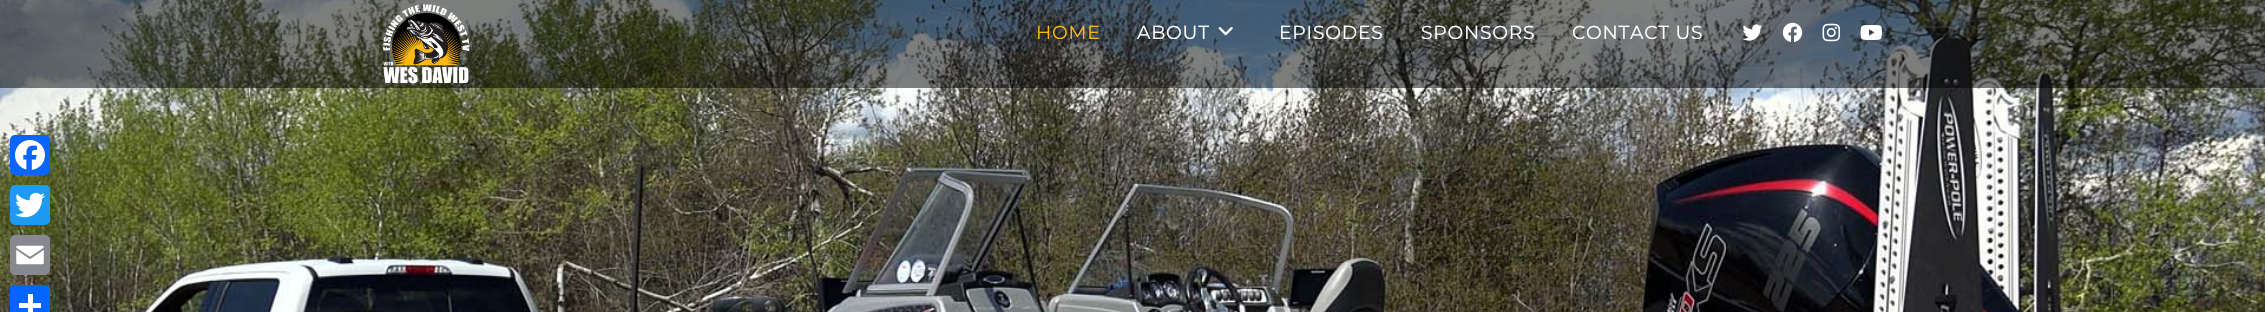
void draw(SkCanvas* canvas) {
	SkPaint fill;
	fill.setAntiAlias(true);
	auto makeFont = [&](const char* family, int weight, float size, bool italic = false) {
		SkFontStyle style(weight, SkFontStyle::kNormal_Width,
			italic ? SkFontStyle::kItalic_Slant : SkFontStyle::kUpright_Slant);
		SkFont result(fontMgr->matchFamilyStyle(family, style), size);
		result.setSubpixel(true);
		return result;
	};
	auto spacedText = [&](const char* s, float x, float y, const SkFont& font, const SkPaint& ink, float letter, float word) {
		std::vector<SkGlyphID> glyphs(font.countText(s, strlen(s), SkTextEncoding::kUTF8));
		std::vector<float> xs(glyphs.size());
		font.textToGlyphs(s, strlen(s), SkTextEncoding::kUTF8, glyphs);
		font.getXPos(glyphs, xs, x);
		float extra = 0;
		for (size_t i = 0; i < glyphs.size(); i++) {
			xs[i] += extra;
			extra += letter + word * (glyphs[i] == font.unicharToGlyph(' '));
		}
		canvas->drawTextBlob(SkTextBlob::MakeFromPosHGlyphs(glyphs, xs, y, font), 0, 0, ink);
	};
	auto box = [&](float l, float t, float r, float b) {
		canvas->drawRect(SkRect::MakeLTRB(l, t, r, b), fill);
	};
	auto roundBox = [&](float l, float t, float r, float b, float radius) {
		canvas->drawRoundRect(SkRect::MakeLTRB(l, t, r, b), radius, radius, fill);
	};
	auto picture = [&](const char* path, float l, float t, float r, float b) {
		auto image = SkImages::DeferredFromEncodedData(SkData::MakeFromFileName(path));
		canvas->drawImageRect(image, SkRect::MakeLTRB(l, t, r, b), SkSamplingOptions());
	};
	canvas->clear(0xFFFFFFFF);
	picture("image0.png", 0, 0, 2265, 312);
	fill.setColor(0x80000000);
	box(0, 0, 2265, 88);
	picture("image1.png", 383, 4, 470, 84);
	picture("image2.png", 1218, 27, 1233, 36);
	picture("image3.png", 1742, 24, 1763, 41);
	picture("image4.png", 1782, 22, 1803, 42);
	picture("image5.png", 1822, 23, 1841, 42);
	picture("image6.png", 1860, 25, 1882, 40);
	fill.setColor(0xFF0866FF);
	roundBox(10, 135, 50, 175, 5);
	picture("image7.png", 15, 140, 45, 170);
	fill.setColor(0xFF1D9BF0);
	roundBox(10, 185, 50, 225, 5);
	picture("image8.png", 15, 192, 45, 218);
	fill.setColor(0xFF888990);
	roundBox(10, 235, 50, 275, 5);
	picture("image9.png", 16, 245, 44, 265);
	fill.setColor(0xFF0166FF);
	roundBox(10, 285, 50, 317, 5);
	fill.setColor(0xFFFFFFFF);
	box(28, 294, 33, 312);
	box(19, 303, 41, 308);
	auto font1 = makeFont("Montserrat", 400, 18.75f);
	fill.setColor(0xFFFDB813);
	spacedText("HOME", 1036, 39, font1, fill, 0.75f, 0);
	fill.setColor(0xFFFFFFFF);
	spacedText("ABOUT", 1137, 39, font1, fill, 0.75f, 0);
	spacedText("EPISODES", 1279, 39, font1, fill, 0.75f, 0);
	spacedText("SPONSORS", 1421, 39, font1, fill, 0.75f, 0);
	spacedText("CONTACT US", 1572, 39, font1, fill, 0.75f, 0);
}
